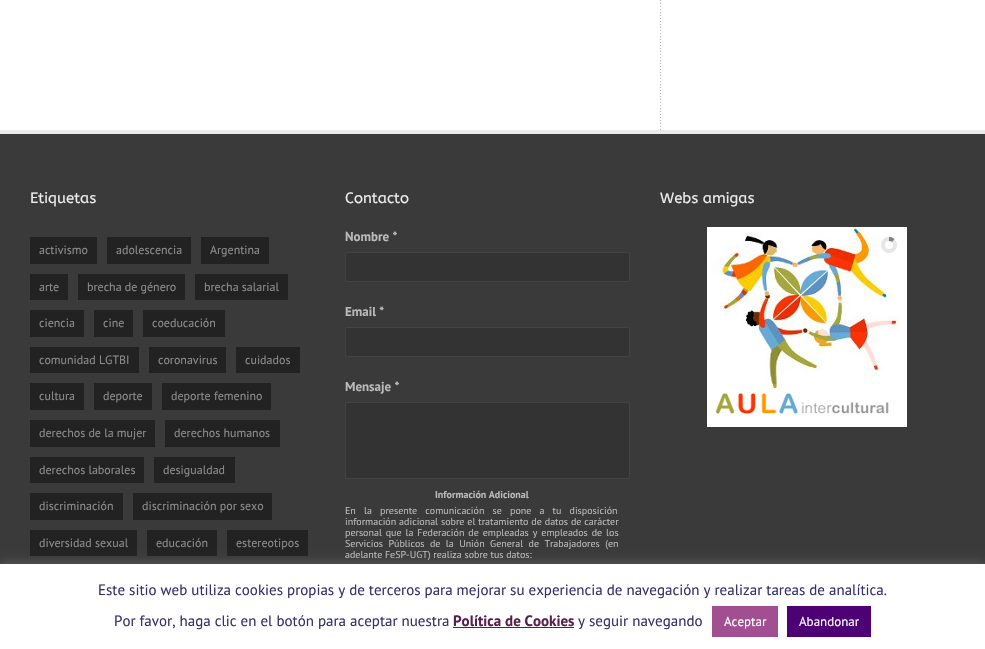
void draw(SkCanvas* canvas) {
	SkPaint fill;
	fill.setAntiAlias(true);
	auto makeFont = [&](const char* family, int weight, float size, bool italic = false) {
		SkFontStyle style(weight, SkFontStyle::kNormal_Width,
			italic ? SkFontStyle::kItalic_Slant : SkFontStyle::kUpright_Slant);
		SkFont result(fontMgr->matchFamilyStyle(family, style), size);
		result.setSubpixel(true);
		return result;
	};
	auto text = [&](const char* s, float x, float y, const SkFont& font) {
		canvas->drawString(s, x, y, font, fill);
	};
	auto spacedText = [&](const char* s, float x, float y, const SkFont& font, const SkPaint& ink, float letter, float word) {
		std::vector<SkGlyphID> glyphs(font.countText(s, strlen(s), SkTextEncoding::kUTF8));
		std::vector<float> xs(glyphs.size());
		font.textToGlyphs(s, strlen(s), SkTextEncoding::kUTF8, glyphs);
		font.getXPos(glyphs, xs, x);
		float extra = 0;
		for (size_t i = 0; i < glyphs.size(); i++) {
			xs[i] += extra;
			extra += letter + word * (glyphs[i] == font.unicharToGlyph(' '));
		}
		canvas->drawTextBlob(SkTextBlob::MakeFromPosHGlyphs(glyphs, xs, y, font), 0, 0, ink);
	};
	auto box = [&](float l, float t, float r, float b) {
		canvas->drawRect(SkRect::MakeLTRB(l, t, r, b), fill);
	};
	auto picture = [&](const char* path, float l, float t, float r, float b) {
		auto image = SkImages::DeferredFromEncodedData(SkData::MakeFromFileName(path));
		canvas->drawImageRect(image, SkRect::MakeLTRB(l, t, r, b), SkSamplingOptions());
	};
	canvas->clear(0xFFFFFFFF);
	picture("image0.png", 660, 0, 661, 130);
	fill.setColor(0xFFEAEAEA);
	box(0, 130, 985, 134);
	fill.setColor(0xFF3A3A3A);
	box(0, 134, 985, 564);
	fill.setColor(0xFF222222);
	box(30, 237, 97, 264);
	box(107, 237, 191, 264);
	box(201, 237, 269, 264);
	box(30, 274, 68, 300);
	box(78, 274, 185, 300);
	box(195, 274, 288, 300);
	box(30, 310, 84, 337);
	box(94, 310, 133, 337);
	box(143, 310, 225, 337);
	box(30, 347, 139, 373);
	box(149, 347, 226, 373);
	box(236, 347, 300, 373);
	box(30, 383, 84, 410);
	box(94, 383, 152, 410);
	box(162, 383, 271, 410);
	box(30, 420, 155, 447);
	box(165, 420, 280, 447);
	box(30, 457, 144, 483);
	box(154, 457, 235, 483);
	box(30, 493, 123, 520);
	box(133, 493, 272, 520);
	box(30, 530, 137, 556);
	box(147, 530, 217, 556);
	box(227, 530, 308, 556);
	fill.setColor(0xFF333333);
	canvas->drawRoundRect(SkRect::MakeLTRB(345.5f, 252.5f, 629.5f, 281.5f), 1.5f, 1.5f, fill);
	fill.setStyle(SkPaint::kStroke_Style);
	fill.setStrokeWidth(1);
	fill.setColor(0xFF434343);
	canvas->drawRoundRect(SkRect::MakeLTRB(345.5f, 252.5f, 629.5f, 281.5f), 1.5f, 1.5f, fill);
	fill.setStyle(SkPaint::kFill_Style);
	fill.setColor(0xFF333333);
	canvas->drawRoundRect(SkRect::MakeLTRB(345.5f, 327.5f, 629.5f, 356.5f), 1.5f, 1.5f, fill);
	fill.setStyle(SkPaint::kStroke_Style);
	fill.setColor(0xFF434343);
	canvas->drawRoundRect(SkRect::MakeLTRB(345.5f, 327.5f, 629.5f, 356.5f), 1.5f, 1.5f, fill);
	fill.setStyle(SkPaint::kFill_Style);
	fill.setColor(0xFF333333);
	canvas->drawRoundRect(SkRect::MakeLTRB(345.5f, 402.5f, 629.5f, 478.5f), 1.5f, 1.5f, fill);
	fill.setStyle(SkPaint::kStroke_Style);
	fill.setColor(0xFF434343);
	canvas->drawRoundRect(SkRect::MakeLTRB(345.5f, 402.5f, 629.5f, 478.5f), 1.5f, 1.5f, fill);
	picture("image1.png", 707, 227, 907, 427);
	fill.setStrokeWidth(4);
	fill.setColor(0xFFE6E6E6);
	canvas->drawCircle(889, 245, 6, fill);
	canvas->save();
	canvas->clipRect(SkRect::MakeLTRB(889, 237, 897, 253));
	canvas->clipPath(SkPathBuilder().moveTo(888.5f, 233.5f).lineTo(894.5f, 239).lineTo(884.5f, 251).lineTo(878, 246).close().detach(), true);
	fill.setColor(0xFF808080);
	canvas->drawPath(SkPathBuilder().moveTo(893.5f, 240.5f).cubicTo(899.5f, 245.5f, 891.5f, 254.5f, 885.5f, 249.5f).cubicTo(879.5f, 244.5f, 887, 235.5f, 893.5f, 240.5f).close().detach(), fill);
	canvas->restore();
	fill.setStyle(SkPaint::kFill_Style);
	fill.setColor(0x4DACABAB);
	fill.setMaskFilter(SkMaskFilter::MakeBlur(kNormal_SkBlurStyle, 5));
	canvas->drawRect(SkRect::MakeLTRB(0, 563, 985, 648), fill);
	fill.setMaskFilter(nullptr);
	fill.setColor(0xFFFFFFFF);
	box(0, 564, 985, 649);
	fill.setColor(0xFF591D4E);
	box(453, 627, 574, 628);
	fill.setColor(0xFFA14F91);
	box(712, 606, 778, 637);
	fill.setColor(0xFF4E0075);
	box(787, 606, 871, 637);
	auto font1 = makeFont("ABeeZee", 400, 15);
	fill.setColor(0xFFECECEC);
	text("Etiquetas", 30, 203, font1);
	auto font2 = makeFont("PT Sans", 400, 12);
	fill.setColor(0xFF8C8C8C);
	text("activismo", 39, 254, font2);
	text("adolescencia", 116, 254, font2);
	text("Argentina", 210, 254, font2);
	text("arte", 39, 291, font2);
	text("brecha de género", 87, 291, font2);
	text("brecha salarial", 204, 291, font2);
	text("ciencia", 39, 327, font2);
	text("cine", 103, 327, font2);
	text("coeducación", 152, 327, font2);
	text("comunidad LGTBI", 39, 364, font2);
	text("coronavirus", 158, 364, font2);
	text("cuidados", 245, 364, font2);
	text("cultura", 39, 400, font2);
	text("deporte", 103, 400, font2);
	text("deporte femenino", 171, 400, font2);
	text("derechos de la mujer", 39, 437, font2);
	text("derechos humanos", 174, 437, font2);
	text("derechos laborales", 39, 474, font2);
	text("desigualdad", 163, 474, font2);
	text("discriminación", 39, 510, font2);
	text("discriminación por sexo", 142, 510, font2);
	text("diversidad sexual", 39, 547, font2);
	text("educación", 156, 547, font2);
	text("estereotipos", 236, 547, font2);
	fill.setColor(0xFFECECEC);
	text("Contacto", 345, 203, font1);
	auto font3 = makeFont("PT Sans", 700, 13);
	fill.setColor(0xFFBABABA);
	text("Nombre *", 345, 241, font3);
	text("Email *", 345, 316, font3);
	text("Mensaje *", 345, 391, font3);
	auto font4 = makeFont("PT Sans", 700, 10);
	text("Información Adicional", 435, 498, font4);
	auto font5 = makeFont("PT Sans", 400, 10);
	spacedText("En la presente comunicación se pone a tu disposición", 345, 514, font5, fill, 0, 5.5f);
	spacedText("información adicional sobre el tratamiento de datos de carácter", 345, 525, font5, fill, 0, 0.25f);
	spacedText("personal que la Federación de empleadas y empleados de los", 345, 536, font5, fill, 0, 1.25f);
	spacedText("Servicios Públicos de la Unión General de Trabajadores (en", 345, 547, font5, fill, 0, 2.75f);
	text("adelante FeSP-UGT) realiza sobre tus datos:", 345, 558, font5);
	fill.setColor(0xFFECECEC);
	text("Webs amigas", 660, 203, font1);
	auto font6 = makeFont("PT Sans", 400, 15);
	fill.setColor(0xFF35306D);
	text("Este sitio web utiliza cookies propias y de terceros para mejorar su experiencia de navegación y realizar tareas de analítica.", 98, 595, font6);
	text("Por favor, haga clic en el botón para aceptar nuestra", 114, 626, font6);
	auto font7 = makeFont("PT Sans", 700, 15);
	fill.setColor(0xFF591D4E);
	text("Política de Cookies", 453, 626, font7);
	fill.setColor(0xFF35306D);
	text("y seguir navegando", 578, 626, font6);
	auto font8 = makeFont("PT Sans", 400, 13);
	fill.setColor(0xFFFFFFFF);
	text("Aceptar", 724, 626, font8);
	text("Abandonar", 799, 626, font8);
}
